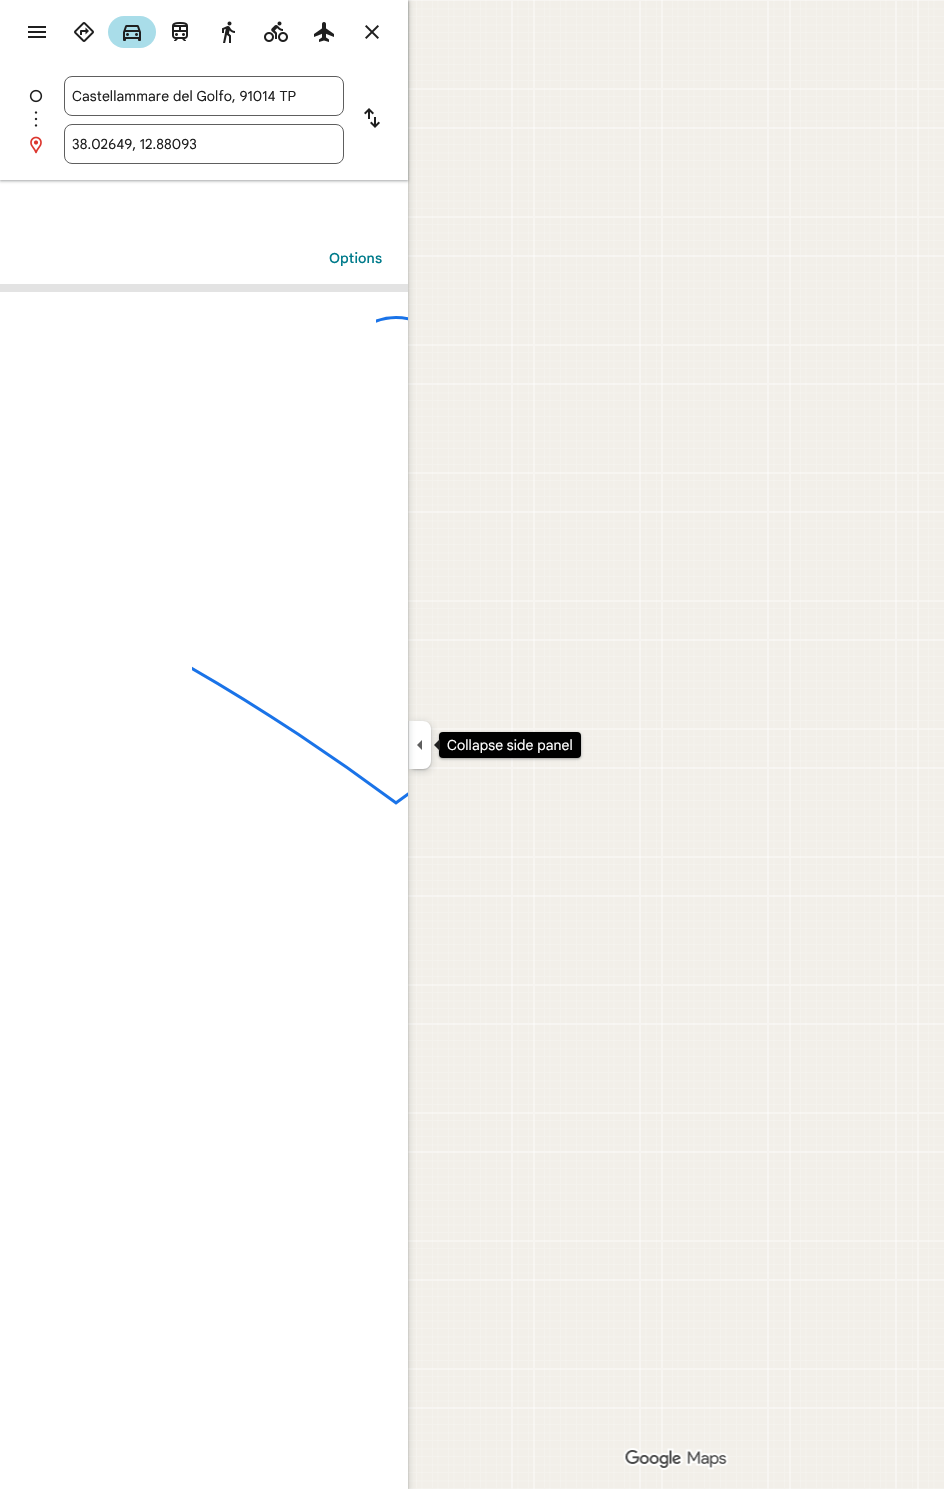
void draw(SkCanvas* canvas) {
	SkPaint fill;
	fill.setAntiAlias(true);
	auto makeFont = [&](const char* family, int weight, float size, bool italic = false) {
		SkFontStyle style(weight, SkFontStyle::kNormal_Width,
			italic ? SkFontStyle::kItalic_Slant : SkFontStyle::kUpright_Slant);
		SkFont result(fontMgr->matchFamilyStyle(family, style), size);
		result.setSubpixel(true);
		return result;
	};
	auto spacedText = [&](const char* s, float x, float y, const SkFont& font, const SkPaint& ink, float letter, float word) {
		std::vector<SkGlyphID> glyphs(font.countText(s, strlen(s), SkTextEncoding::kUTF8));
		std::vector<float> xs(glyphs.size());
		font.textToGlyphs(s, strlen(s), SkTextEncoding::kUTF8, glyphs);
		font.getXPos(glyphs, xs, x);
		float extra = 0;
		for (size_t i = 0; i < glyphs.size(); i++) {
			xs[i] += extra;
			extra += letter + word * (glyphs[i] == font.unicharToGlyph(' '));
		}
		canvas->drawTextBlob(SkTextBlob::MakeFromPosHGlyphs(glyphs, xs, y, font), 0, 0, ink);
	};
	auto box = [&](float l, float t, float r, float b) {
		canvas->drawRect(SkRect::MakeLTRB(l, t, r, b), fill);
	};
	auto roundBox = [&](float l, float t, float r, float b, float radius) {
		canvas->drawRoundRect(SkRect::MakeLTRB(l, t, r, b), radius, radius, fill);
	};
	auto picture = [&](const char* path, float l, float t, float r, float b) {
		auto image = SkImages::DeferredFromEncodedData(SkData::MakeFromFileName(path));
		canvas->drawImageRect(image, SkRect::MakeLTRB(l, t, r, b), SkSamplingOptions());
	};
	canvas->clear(0xFFFFFFFF);
	picture("image12.png", 408, 0, 944, 1489);
	picture("image13.png", 408, 0, 944, 1489);
	fill.setColor(0x263C4043);
	fill.setMaskFilter(SkMaskFilter::MakeBlur(kNormal_SkBlurStyle, 3));
	canvas->drawRoundRect(SkRect::MakeLTRB(406, 721, 433, 773), 10, 10, fill);
	fill.setMaskFilter(nullptr);
	fill.setColor(0x4D3C4043);
	fill.setMaskFilter(SkMaskFilter::MakeBlur(kNormal_SkBlurStyle, 1));
	canvas->drawRoundRect(SkRect::MakeLTRB(408, 722, 431, 770), 8, 8, fill);
	fill.setMaskFilter(nullptr);
	fill.setColor(0xFFFFFFFF);
	canvas->drawPath(SkPathBuilder().moveTo(408, 721).lineTo(423, 721).cubicTo(427.5f, 721, 431, 724.5f, 431, 729).lineTo(431, 761).cubicTo(431, 765.5f, 427.5f, 769, 423, 769).lineTo(408, 769).close().detach(), fill);
	fill.setColor(0xFFE3E3E3);
	box(408, 721, 409, 769);
	fill.setColor(0xFF5E5E5E);
	canvas->drawPath(SkPathBuilder().moveTo(422, 750).lineTo(417, 745).lineTo(422, 740).close().detach(), fill);
	fill.setColor(0x263C4043);
	fill.setMaskFilter(SkMaskFilter::MakeBlur(kNormal_SkBlurStyle, 3));
	canvas->drawRect(SkRect::MakeLTRB(-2, 0, 410, 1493), fill);
	fill.setMaskFilter(nullptr);
	fill.setColor(0x4D3C4043);
	fill.setMaskFilter(SkMaskFilter::MakeBlur(kNormal_SkBlurStyle, 1));
	canvas->drawRect(SkRect::MakeLTRB(0, 1, 408, 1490), fill);
	fill.setMaskFilter(nullptr);
	fill.setColor(0xFFFFFFFF);
	box(0, 0, 408, 1489);
	canvas->save();
	canvas->clipPath(SkPathBuilder(SkPathFillType::kEvenOdd).moveTo(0, 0).lineTo(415, 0).lineTo(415, 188).lineTo(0, 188).close().moveTo(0, 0).lineTo(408, 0).lineTo(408, 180).lineTo(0, 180).close().detach(), true);
	fill.setColor(0x263C4043);
	fill.setMaskFilter(SkMaskFilter::MakeBlur(kNormal_SkBlurStyle, 1.5f));
	canvas->drawRect(SkRect::MakeLTRB(-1, 0, 409, 182), fill);
	fill.setMaskFilter(nullptr);
	canvas->restore();
	canvas->save();
	canvas->clipPath(SkPathBuilder(SkPathFillType::kEvenOdd).moveTo(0, 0).lineTo(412, 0).lineTo(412, 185).lineTo(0, 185).close().moveTo(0, 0).lineTo(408, 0).lineTo(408, 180).lineTo(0, 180).close().detach(), true);
	fill.setColor(0x4D3C4043);
	fill.setMaskFilter(SkMaskFilter::MakeBlur(kNormal_SkBlurStyle, 1));
	canvas->drawRect(SkRect::MakeLTRB(0, 1, 408, 181), fill);
	fill.setMaskFilter(nullptr);
	canvas->restore();
	picture("image0.png", 28, 26, 46, 38);
	picture("image1.png", 74, 22, 94, 42);
	fill.setColor(0xFFA9DDE9);
	roundBox(108, 16, 156, 48, 16);
	picture("image2.png", 123, 25, 141, 41);
	picture("image3.png", 172, 22, 188, 41);
	picture("image4.png", 222, 21, 235, 43);
	picture("image5.png", 264, 21, 288, 42);
	picture("image6.png", 314, 22, 334, 42);
	picture("image7.png", 365, 25, 379, 39);
	picture("image8.png", 29, 89, 43, 103);
	picture("image9.png", 34, 111, 38, 127);
	fill.setStyle(SkPaint::kStroke_Style);
	fill.setStrokeWidth(1);
	fill.setColor(0xFF5E5E5E);
	canvas->drawRoundRect(SkRect::MakeLTRB(64.5f, 76.5f, 343.5f, 115.5f), 7.5f, 7.5f, fill);
	picture("image10.png", 30, 136, 42, 154);
	canvas->drawRoundRect(SkRect::MakeLTRB(64.5f, 124.5f, 343.5f, 163.5f), 7.5f, 7.5f, fill);
	picture("image11.png", 364, 108, 380, 128);
	picture("image14.png", 623, 1448, 729, 1470);
	fill.setStyle(SkPaint::kFill_Style);
	fill.setColor(0xFFE3E3E3);
	box(0, 284, 408, 292);
	canvas->save();
	canvas->clipRect(SkRect::MakeLTRB(376, 316, 408, 1489));
	fill.setStyle(SkPaint::kStroke_Style);
	fill.setStrokeWidth(3);
	fill.setColor(0xFF1A73E8);
	canvas->drawPath(SkPathBuilder().moveTo(253, 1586).cubicTo(215, 1446.5f, 193.5f, 1257.5f, 193.5f, 1060.5f).cubicTo(193.5f, 863.5f, 215, 674.5f, 253, 535).cubicTo(291, 396, 342.5f, 317.5f, 396, 317.5f).cubicTo(449.5f, 317.5f, 501, 396, 539, 535).cubicTo(577, 674.5f, 598.5f, 863.5f, 598.5f, 1060.5f).cubicTo(598.5f, 1257.5f, 577, 1446.5f, 539, 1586).detach(), fill);
	canvas->restore();
	canvas->save();
	canvas->clipRect(SkRect::MakeLTRB(192, 316, 396, 1489));
	canvas->drawPath(SkPathBuilder().moveTo(85.5f, 613).cubicTo(216.5f, 673.5f, 375, 778.5f, 526, 905.5f).cubicTo(677, 1032, 808, 1170, 890.5f, 1288.5f).cubicTo(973, 1407, 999.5f, 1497, 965, 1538).cubicTo(930.5f, 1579, 837.5f, 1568.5f, 706.5f, 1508).detach(), fill);
	canvas->restore();
	canvas->save();
	canvas->clipRect(SkRect::MakeLTRB(396, 316, 408, 1489));
	canvas->drawPath(SkPathBuilder().moveTo(85.5f, 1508).cubicTo(-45.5f, 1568.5f, -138.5f, 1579, -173, 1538).cubicTo(-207.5f, 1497, -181, 1407, -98.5f, 1288.5f).cubicTo(-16, 1170, 115, 1032, 266, 905.5f).cubicTo(417, 778.5f, 575.5f, 673.5f, 706.5f, 613).detach(), fill);
	canvas->restore();
	fill.setStyle(SkPaint::kFill_Style);
	fill.setColor(0x263C4043);
	fill.setMaskFilter(SkMaskFilter::MakeBlur(kNormal_SkBlurStyle, 1.5f));
	canvas->drawRoundRect(SkRect::MakeLTRB(438, 732, 582, 760), 5, 5, fill);
	fill.setMaskFilter(nullptr);
	fill.setColor(0x4D3C4043);
	fill.setMaskFilter(SkMaskFilter::MakeBlur(kNormal_SkBlurStyle, 1));
	canvas->drawRoundRect(SkRect::MakeLTRB(439, 733, 581, 759), 4, 4, fill);
	fill.setMaskFilter(nullptr);
	fill.setColor(0xFF000000);
	roundBox(439, 732, 581, 758, 4);
	fill.setColor(0xFF1F1F1F);
	canvas->drawPath(SkPathBuilder().moveTo(440, 739).lineTo(440, 751).lineTo(434, 745).close().detach(), fill);
	auto font1 = makeFont("Google Sans", 400, 14);
	spacedText("Castellammare del Golfo, 91014 TP", 72, 101, font1, fill, 0.1f, 0);
	spacedText("38.02649, 12.88093", 72, 149, font1, fill, 0.1f, 0);
	auto font2 = makeFont("Google Sans", 500, 14);
	fill.setColor(0xFF007B8B);
	spacedText("Options", 329, 263, font2, fill, 0.1f, 0);
	fill.setColor(0xFFFFFFFF);
	spacedText("Collapse side panel", 447, 750, font1, fill, 0.1f, 0);
}
